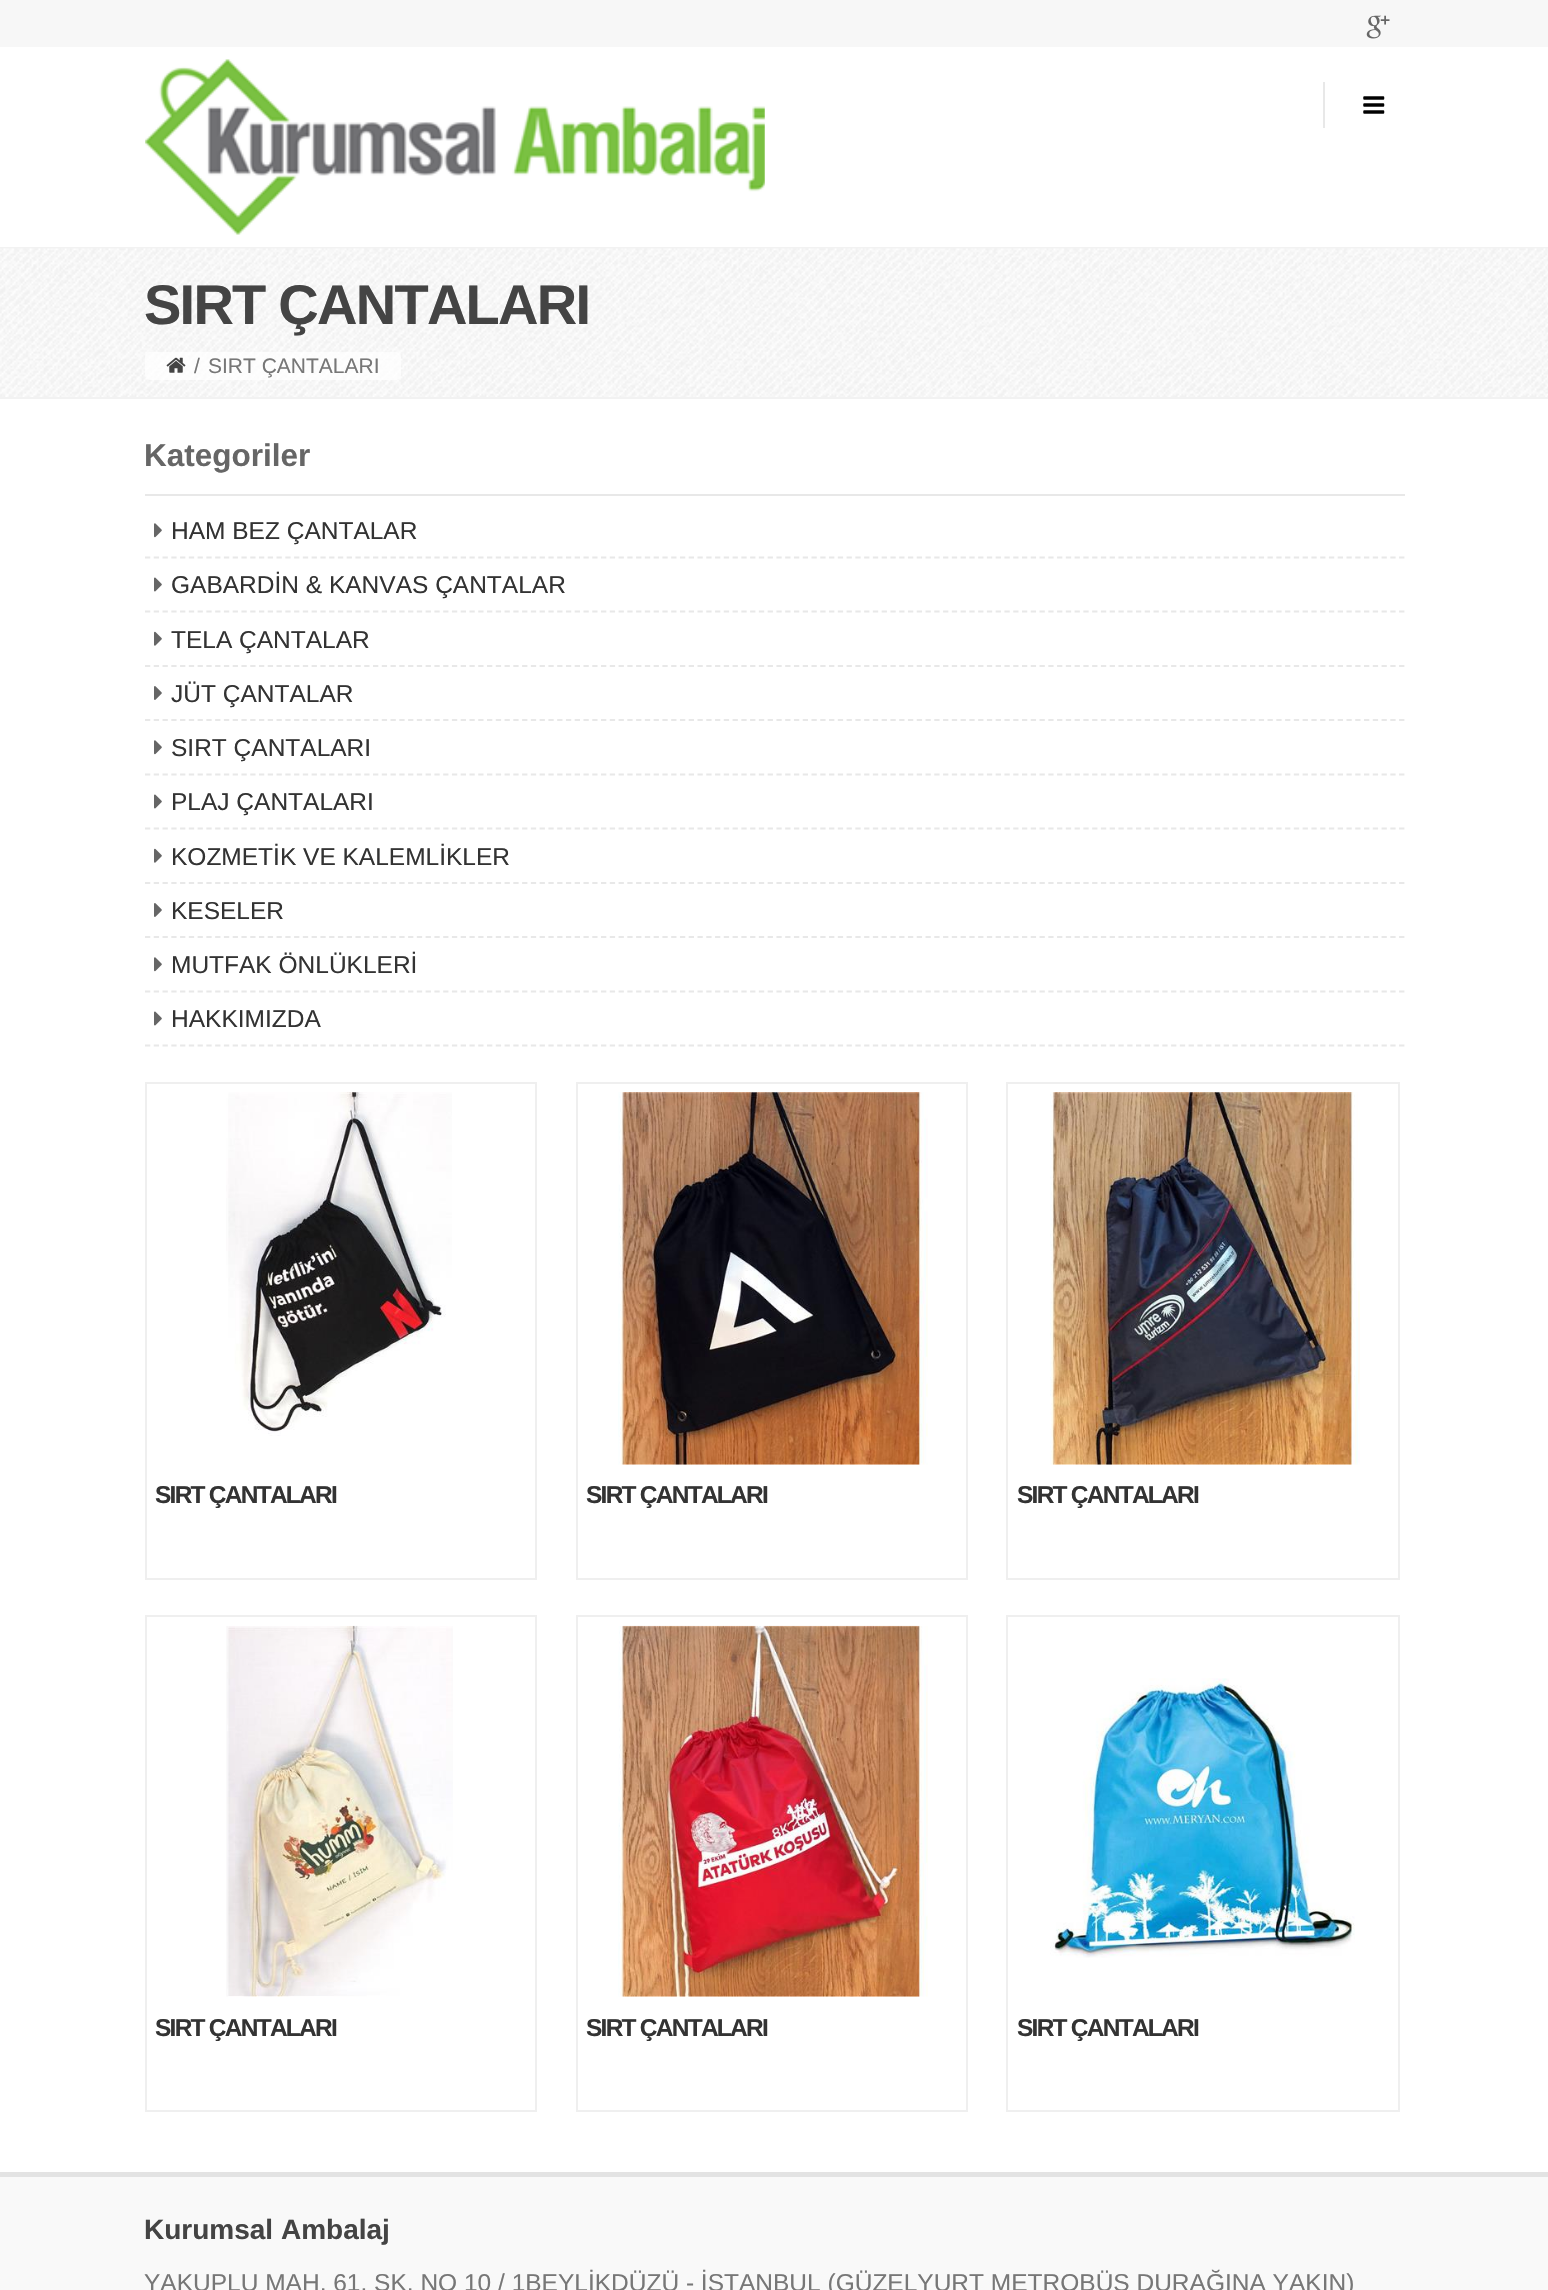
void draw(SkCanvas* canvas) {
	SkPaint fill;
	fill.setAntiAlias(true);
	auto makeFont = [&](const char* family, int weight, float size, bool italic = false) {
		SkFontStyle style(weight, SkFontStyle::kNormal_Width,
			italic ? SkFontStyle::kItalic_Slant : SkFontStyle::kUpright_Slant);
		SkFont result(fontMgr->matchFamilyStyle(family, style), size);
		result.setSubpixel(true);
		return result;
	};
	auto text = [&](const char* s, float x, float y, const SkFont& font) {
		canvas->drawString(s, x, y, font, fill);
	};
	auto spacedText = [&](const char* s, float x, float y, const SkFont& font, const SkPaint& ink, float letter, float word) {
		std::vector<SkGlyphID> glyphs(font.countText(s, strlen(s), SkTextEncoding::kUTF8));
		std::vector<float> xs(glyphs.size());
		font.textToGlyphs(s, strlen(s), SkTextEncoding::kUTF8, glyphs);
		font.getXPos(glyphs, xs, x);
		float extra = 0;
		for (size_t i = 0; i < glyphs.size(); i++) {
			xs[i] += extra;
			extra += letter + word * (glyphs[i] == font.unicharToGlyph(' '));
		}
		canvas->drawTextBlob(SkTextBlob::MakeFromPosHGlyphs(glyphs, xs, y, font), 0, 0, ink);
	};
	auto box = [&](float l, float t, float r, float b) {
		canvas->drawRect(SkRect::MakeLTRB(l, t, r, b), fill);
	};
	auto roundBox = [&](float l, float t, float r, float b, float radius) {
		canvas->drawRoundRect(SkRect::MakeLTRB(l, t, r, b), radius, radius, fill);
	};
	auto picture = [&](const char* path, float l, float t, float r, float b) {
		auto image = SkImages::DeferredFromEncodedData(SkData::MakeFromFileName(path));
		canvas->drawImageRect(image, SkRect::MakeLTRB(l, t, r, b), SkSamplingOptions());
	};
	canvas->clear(0xFFFFFFFF);
	fill.setColor(0xFFF7F7F7);
	box(0, 0, 1548, 47);
	picture("image0.png", 1366, 15, 1390, 39);
	fill.setColor(0xFFF2F2F2);
	box(0, 247, 1548, 249);
	picture("image1.png", 145, 59, 765, 235);
	fill.setColor(0xFFE8E8E8);
	box(1323, 82, 1325, 128);
	picture("image2.png", 1363, 96, 1385, 114);
	picture("image3.png", 0, 248, 1548, 397);
	fill.setColor(0xFFF2F2F2);
	box(0, 397, 1548, 399);
	fill.setColor(0xB3FFFFFF);
	roundBox(145, 352, 401, 380, 5);
	picture("image4.png", 166, 357, 186, 373);
	fill.setColor(0xFFE8E8E8);
	box(145, 494, 1405, 496);
	fill.setStyle(SkPaint::kStroke_Style);
	fill.setStrokeWidth(1.8f);
	fill.setPathEffect(SkDashPathEffect::Make({{5.25f, 3.52f}}, 0));
	canvas->drawPath(SkPathBuilder().moveTo(145, 557.5f).lineTo(1405, 557.5f).detach(), fill);
	fill.setPathEffect(nullptr);
	picture("image5.png", 154, 523, 162, 538);
	fill.setPathEffect(SkDashPathEffect::Make({{5.25f, 3.52f}}, 0));
	canvas->drawPath(SkPathBuilder().moveTo(145, 611.5f).lineTo(1405, 611.5f).detach(), fill);
	fill.setPathEffect(nullptr);
	picture("image6.png", 154, 577, 162, 592);
	fill.setPathEffect(SkDashPathEffect::Make({{5.25f, 3.52f}}, 0));
	canvas->drawPath(SkPathBuilder().moveTo(145, 666).lineTo(1405, 666).detach(), fill);
	fill.setPathEffect(nullptr);
	picture("image7.png", 154, 631, 162, 646);
	fill.setPathEffect(SkDashPathEffect::Make({{5.25f, 3.52f}}, 0));
	canvas->drawPath(SkPathBuilder().moveTo(145, 720).lineTo(1405, 720).detach(), fill);
	fill.setPathEffect(nullptr);
	picture("image8.png", 154, 686, 162, 700);
	fill.setPathEffect(SkDashPathEffect::Make({{5.25f, 3.52f}}, 0));
	canvas->drawPath(SkPathBuilder().moveTo(145, 774.5f).lineTo(1405, 774.5f).detach(), fill);
	fill.setPathEffect(nullptr);
	picture("image5.png", 154, 740, 162, 755);
	fill.setPathEffect(SkDashPathEffect::Make({{5.25f, 3.52f}}, 0));
	canvas->drawPath(SkPathBuilder().moveTo(145, 828.5f).lineTo(1405, 828.5f).detach(), fill);
	fill.setPathEffect(nullptr);
	picture("image6.png", 154, 794, 162, 809);
	fill.setPathEffect(SkDashPathEffect::Make({{5.25f, 3.52f}}, 0));
	canvas->drawPath(SkPathBuilder().moveTo(145, 883).lineTo(1405, 883).detach(), fill);
	fill.setPathEffect(nullptr);
	picture("image7.png", 154, 848, 162, 863);
	fill.setPathEffect(SkDashPathEffect::Make({{5.25f, 3.52f}}, 0));
	canvas->drawPath(SkPathBuilder().moveTo(145, 937).lineTo(1405, 937).detach(), fill);
	fill.setPathEffect(nullptr);
	picture("image8.png", 154, 903, 162, 917);
	fill.setPathEffect(SkDashPathEffect::Make({{5.25f, 3.52f}}, 0));
	canvas->drawPath(SkPathBuilder().moveTo(145, 991.5f).lineTo(1405, 991.5f).detach(), fill);
	fill.setPathEffect(nullptr);
	picture("image5.png", 154, 957, 162, 972);
	fill.setPathEffect(SkDashPathEffect::Make({{5.25f, 3.52f}}, 0));
	canvas->drawPath(SkPathBuilder().moveTo(145, 1045.5f).lineTo(1405, 1045.5f).detach(), fill);
	fill.setPathEffect(nullptr);
	picture("image6.png", 154, 1011, 162, 1026);
	fill.setStrokeWidth(2);
	fill.setColor(0xFFEFEFEF);
	canvas->drawRect(SkRect::MakeLTRB(146, 1083, 536, 1579), fill);
	picture("image9.png", 226, 1092, 452, 1436);
	canvas->drawRect(SkRect::MakeLTRB(577, 1083, 967, 1579), fill);
	picture("image10.png", 618, 1092, 928, 1465);
	canvas->drawRect(SkRect::MakeLTRB(1007, 1083, 1399, 1579), fill);
	picture("image11.png", 1050, 1092, 1360, 1465);
	canvas->drawRect(SkRect::MakeLTRB(146, 1616, 536, 2111), fill);
	picture("image12.png", 226, 1625, 453, 1997);
	canvas->drawRect(SkRect::MakeLTRB(577, 1616, 967, 2111), fill);
	picture("image13.png", 618, 1625, 928, 1997);
	canvas->drawRect(SkRect::MakeLTRB(1007, 1616, 1399, 2111), fill);
	picture("image14.png", 1050, 1678, 1355, 1958);
	fill.setStyle(SkPaint::kFill_Style);
	fill.setColor(0xFFF9F9F9);
	box(0, 2177, 1548, 2290);
	fill.setColor(0xFFE3E3E3);
	box(0, 2172, 1548, 2177);
	auto font1 = makeFont("Liberation Sans", 700, 56);
	fill.setColor(0xFF444444);
	spacedText("SIRT ÇANTALARI", 144, 324, font1, fill, -1.75f, 0);
	auto font2 = makeFont("Liberation Sans", 400, 21);
	fill.setColor(0xFF777777);
	text("/", 194, 373, font2);
	text("SIRT ÇANTALARI", 208, 373, font2);
	auto font3 = makeFont("Liberation Sans", 700, 31.5f);
	fill.setColor(0xFF666666);
	text("Kategoriler", 144, 466, font3);
	auto font4 = makeFont("Liberation Sans", 400, 24.5f);
	fill.setColor(0xFF333333);
	text("HAM BEZ ÇANTALAR", 171, 539, font4);
	text("GABARDİN & KANVAS ÇANTALAR", 171, 593, font4);
	text("TELA ÇANTALAR", 171, 648, font4);
	text("JÜT ÇANTALAR", 171, 702, font4);
	text("SIRT ÇANTALARI", 171, 756, font4);
	text("PLAJ ÇANTALARI", 171, 810, font4);
	text("KOZMETİK VE KALEMLİKLER", 171, 865, font4);
	text("KESELER", 171, 919, font4);
	text("MUTFAK ÖNLÜKLERİ", 171, 973, font4);
	text("HAKKIMIZDA", 171, 1027, font4);
	auto font5 = makeFont("Liberation Sans", 700, 24.5f);
	spacedText("SIRT ÇANTALARI", 155, 1503, font5, fill, -1.75f, 0);
	spacedText("SIRT ÇANTALARI", 586, 1503, font5, fill, -1.75f, 0);
	spacedText("SIRT ÇANTALARI", 1017, 1503, font5, fill, -1.75f, 0);
	spacedText("SIRT ÇANTALARI", 155, 2036, font5, fill, -1.75f, 0);
	spacedText("SIRT ÇANTALARI", 586, 2036, font5, fill, -1.75f, 0);
	spacedText("SIRT ÇANTALARI", 1017, 2036, font5, fill, -1.75f, 0);
	auto font6 = makeFont("Liberation Sans", 700, 28);
	fill.setColor(0xFF444444);
	text("Kurumsal Ambalaj", 144, 2239, font6);
	fill.setColor(0xFF777777);
	text("YAKUPLU MAH. 61. SK. NO 10 / 1BEYLİKDÜZÜ - İSTANBUL (GÜZELYURT METROBÜS DURAĞINA YAKIN)", 144, 2291, font4);
}
